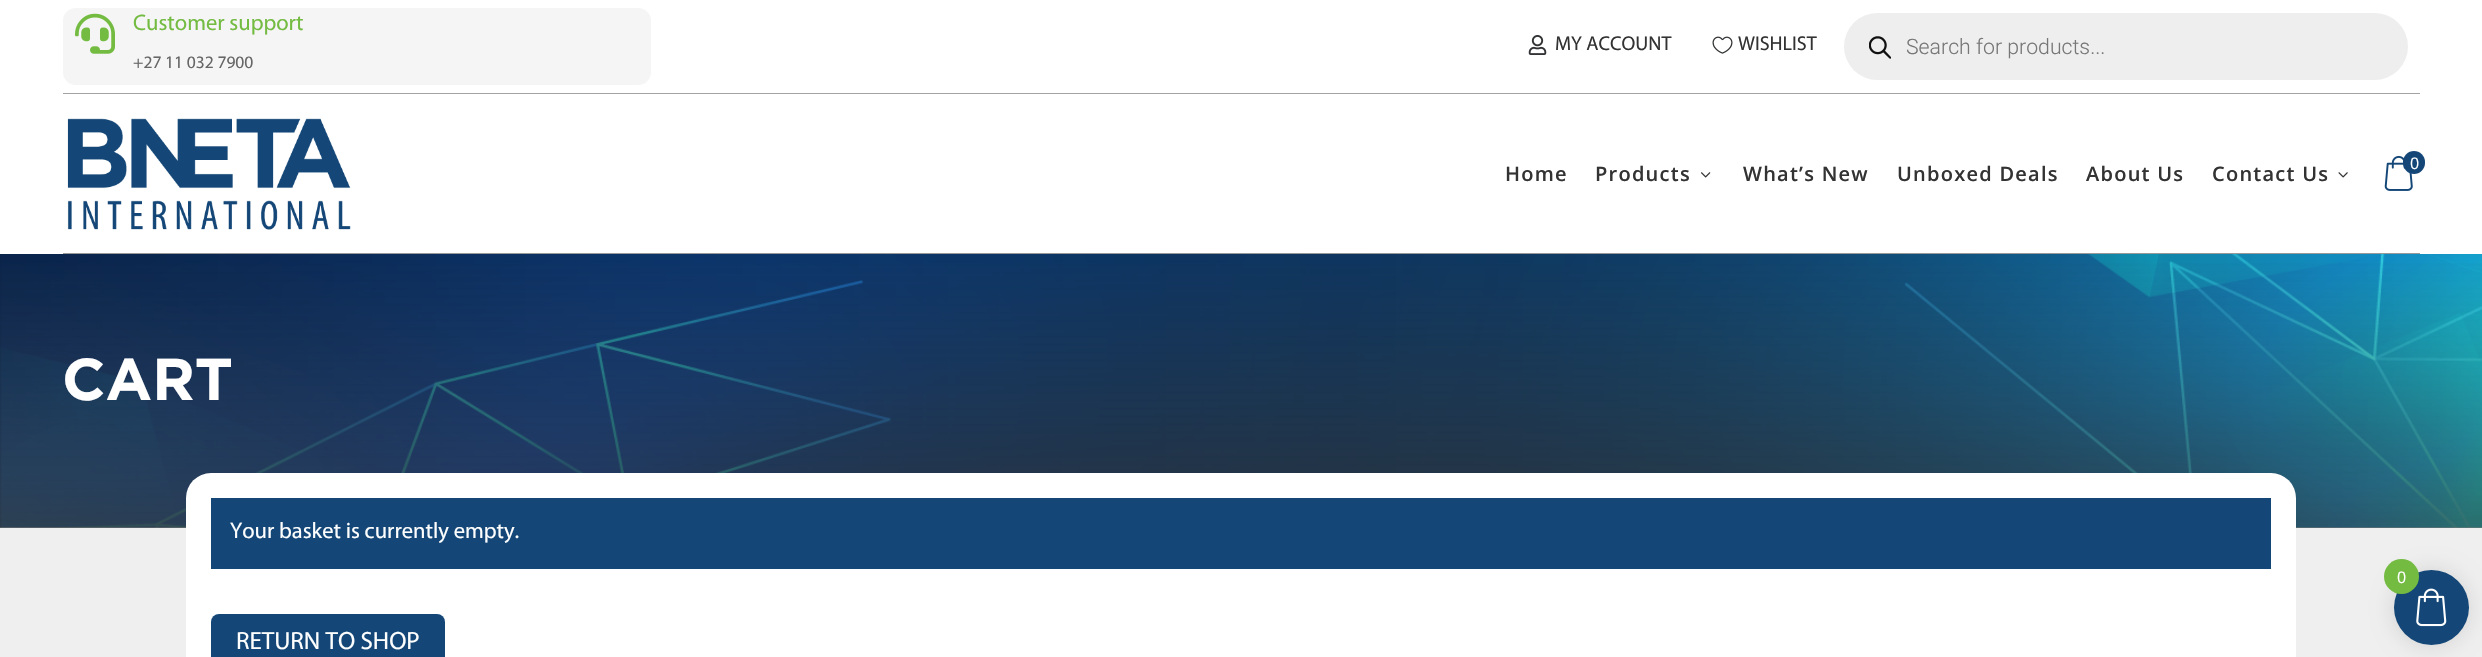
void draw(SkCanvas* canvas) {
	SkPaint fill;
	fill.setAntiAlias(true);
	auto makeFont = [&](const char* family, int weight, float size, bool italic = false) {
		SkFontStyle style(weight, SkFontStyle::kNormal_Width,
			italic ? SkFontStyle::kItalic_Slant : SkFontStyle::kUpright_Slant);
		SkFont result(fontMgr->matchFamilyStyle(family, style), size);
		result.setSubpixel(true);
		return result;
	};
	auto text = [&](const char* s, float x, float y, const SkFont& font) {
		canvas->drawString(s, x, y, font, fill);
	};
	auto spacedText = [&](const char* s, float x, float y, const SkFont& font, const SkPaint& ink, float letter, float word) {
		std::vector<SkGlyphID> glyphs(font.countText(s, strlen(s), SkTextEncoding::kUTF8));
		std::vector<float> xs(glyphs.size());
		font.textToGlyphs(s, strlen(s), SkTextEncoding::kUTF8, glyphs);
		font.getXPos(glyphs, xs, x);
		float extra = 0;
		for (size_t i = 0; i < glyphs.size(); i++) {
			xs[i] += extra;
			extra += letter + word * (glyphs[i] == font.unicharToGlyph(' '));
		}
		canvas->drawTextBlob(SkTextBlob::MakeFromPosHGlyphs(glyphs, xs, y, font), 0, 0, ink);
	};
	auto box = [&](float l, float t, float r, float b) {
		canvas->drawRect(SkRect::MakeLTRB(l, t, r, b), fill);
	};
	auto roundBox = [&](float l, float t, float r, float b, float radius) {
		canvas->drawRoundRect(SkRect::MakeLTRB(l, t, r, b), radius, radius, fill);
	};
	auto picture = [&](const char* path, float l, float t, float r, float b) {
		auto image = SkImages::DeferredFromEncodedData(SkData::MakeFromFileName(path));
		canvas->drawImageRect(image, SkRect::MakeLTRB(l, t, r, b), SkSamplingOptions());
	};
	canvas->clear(0xFFFFFFFF);
	fill.setColor(0xFFA3A3A3);
	box(63, 93, 2420, 94);
	fill.setColor(0xFFF5F5F5);
	roundBox(63, 8, 651, 85, 13);
	picture("image0.png", 75, 13, 115, 54);
	picture("image1.png", 1528, 35, 1547, 55);
	picture("image2.png", 1712, 36, 1733, 54);
	fill.setColor(0xFFEEEEEE);
	roundBox(1844, 13, 2408, 80, 33.5f);
	picture("image3.png", 1869, 36, 1891, 59);
	fill.setColor(0xFF999999);
	box(63, 253, 2420, 254);
	picture("image4.png", 67, 118, 351, 230);
	picture("image5.png", 2384, 155, 2413, 191);
	fill.setColor(0xFF144777);
	roundBox(2403, 151, 2425, 174, 11);
	picture("image6.png", 1701, 172, 1711, 178);
	picture("image7.png", 2338, 172, 2348, 178);
	picture("image8.png", 0, 254, 2482, 528);
	{
		const SkColor colors[] = {0x00333333, 0xA8333333};
		const float stops[] = {0, 0.98f};
		const SkPoint ends[] = {{1241, 254}, {1241, 528}};
		fill.setShader(SkGradientShader::MakeLinear(ends, colors, stops, 2, SkTileMode::kClamp));
		fill.setAlpha(255);
	}
	box(0, 263, 2482, 528);
	fill.setShader(nullptr);
	fill.setColor(0xFFEFEFEF);
	box(0, 528, 2482, 657);
	fill.setColor(0xFFFFFFFF);
	roundBox(186, 473, 2296, 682, 25);
	fill.setColor(0xFF144777);
	box(211, 498, 2271, 569);
	roundBox(211, 614, 445, 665, 8);
	fill.setColor(0x1A000000);
	fill.setMaskFilter(SkMaskFilter::MakeBlur(kNormal_SkBlurStyle, 9.5f));
	canvas->drawRoundRect(SkRect::MakeLTRB(2391, 568, 2471, 648), 40, 40, fill);
	fill.setMaskFilter(nullptr);
	fill.setColor(0xFF144777);
	canvas->drawCircle(2431.5f, 607.5f, 37.5f, fill);
	picture("image9.png", 2416, 588, 2447, 627);
	fill.setColor(0xFF74BB42);
	canvas->drawCircle(2401.5f, 576.5f, 17.5f, fill);
	auto font1 = makeFont("Myriad", 400, 22.5f);
	text("Customer support", 133, 30, font1);
	auto font2 = makeFont("Myriad", 400, 17.5f);
	fill.setColor(0xFF666666);
	text("+27 11 032 7900", 133, 68, font2);
	auto font3 = makeFont("Myriad", 400, 20);
	fill.setColor(0xFF333333);
	text("MY ACCOUNT", 1555, 50, font3);
	text("WISHLIST", 1738, 50, font3);
	auto font4 = makeFont("Roboto", 300, 21.25f);
	fill.setColor(0xFF777777);
	text("Search for products...", 1906, 54, font4);
	auto font5 = makeFont("Open Sans", 400, 16);
	fill.setColor(0xFFFFFFFF);
	text("0", 2410, 169, font5);
	auto font6 = makeFont("Open Sans", 600, 20);
	fill.setColor(0xFF333333);
	spacedText("Home", 1505, 181, font6, fill, 1.25f, 0);
	spacedText("Products", 1595, 181, font6, fill, 1.25f, 0);
	spacedText("What’s New", 1743, 181, font6, fill, 1.25f, 0);
	spacedText("Unboxed Deals", 1897, 181, font6, fill, 1.25f, 0);
	spacedText("About Us", 2086, 181, font6, fill, 1.25f, 0);
	spacedText("Contact Us", 2212, 181, font6, fill, 1.25f, 0);
	auto font7 = makeFont("Gotham", 700, 59);
	fill.setColor(0xFFFFFFFF);
	text("CART", 62, 400, font7);
	text("Your basket is currently empty.", 230, 538, font1);
	auto font8 = makeFont("Myriad", 400, 25);
	text("RETURN TO SHOP", 236, 649, font8);
	text("0", 2397, 583, font5);
}
